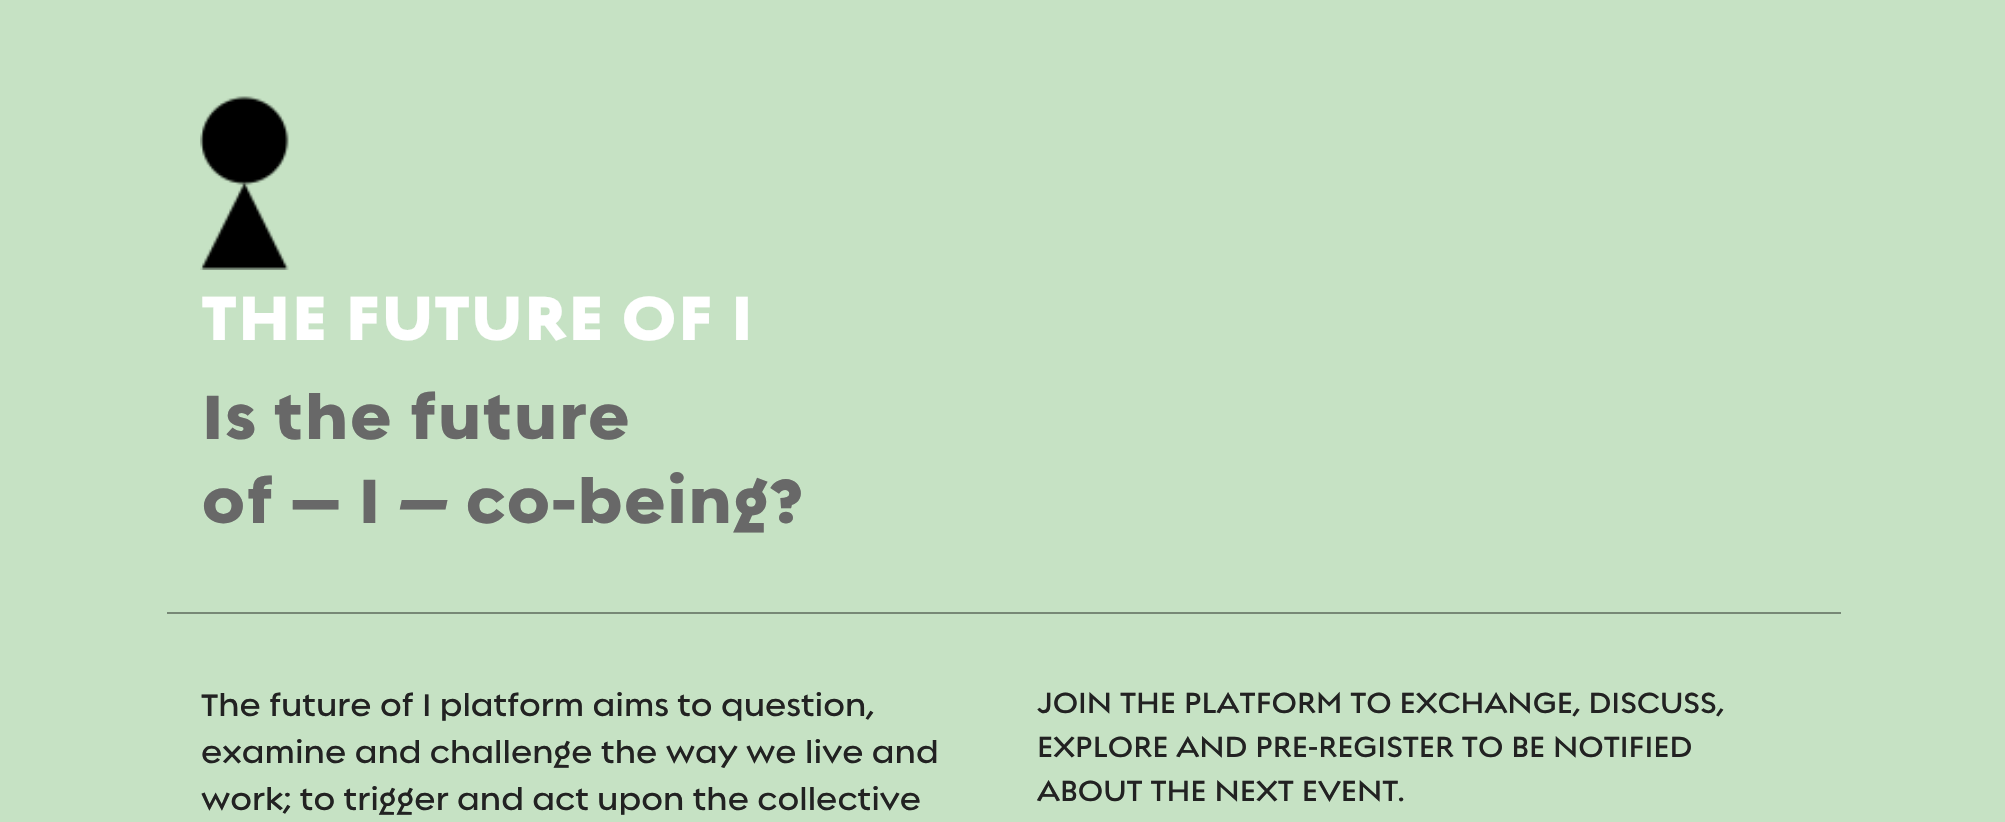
void draw(SkCanvas* canvas) {
	SkPaint fill;
	fill.setAntiAlias(true);
	auto makeFont = [&](const char* family, int weight, float size, bool italic = false) {
		SkFontStyle style(weight, SkFontStyle::kNormal_Width,
			italic ? SkFontStyle::kItalic_Slant : SkFontStyle::kUpright_Slant);
		SkFont result(fontMgr->matchFamilyStyle(family, style), size);
		result.setSubpixel(true);
		return result;
	};
	auto text = [&](const char* s, float x, float y, const SkFont& font) {
		canvas->drawString(s, x, y, font, fill);
	};
	auto box = [&](float l, float t, float r, float b) {
		canvas->drawRect(SkRect::MakeLTRB(l, t, r, b), fill);
	};
	auto picture = [&](const char* path, float l, float t, float r, float b) {
		auto image = SkImages::DeferredFromEncodedData(SkData::MakeFromFileName(path));
		canvas->drawImageRect(image, SkRect::MakeLTRB(l, t, r, b), SkSamplingOptions());
	};
	canvas->clear(0xFFC6E2C4);
	picture("image0.png", 200, 96, 289, 270);
	fill.setColor(0xFF778876);
	box(167, 612, 1841, 614);
	auto font1 = makeFont("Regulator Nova", 900, 67.5f);
	fill.setColor(0xFFFFFFFF);
	text("THE FUTURE OF I", 201, 340, font1);
	fill.setColor(0xFF686868);
	text("Is the future", 201, 439, font1);
	text("of — I", 201, 523, font1);
	auto font2 = makeFont("Regulator Nova", 900, 67.5f, true);
	text("—", 398, 523, font2);
	text("co-being?", 465, 523, font1);
	auto font3 = makeFont("Regulator Nova", 600, 33.75f);
	fill.setColor(0xFF222222);
	text("The future of I platform aims to question,", 201, 716, font3);
	text("examine and challenge the way we live and", 201, 763, font3);
	text("work; to trigger and act upon the collective", 201, 810, font3);
	auto font4 = makeFont("Regulator Nova", 600, 31.5f);
	text("JOIN THE PLATFORM TO EXCHANGE, DISCUSS,", 1037, 713, font4);
	text("EXPLORE AND PRE-REGISTER TO BE NOTIFIED", 1037, 757, font4);
	text("ABOUT THE NEXT EVENT.", 1037, 801, font4);
}
